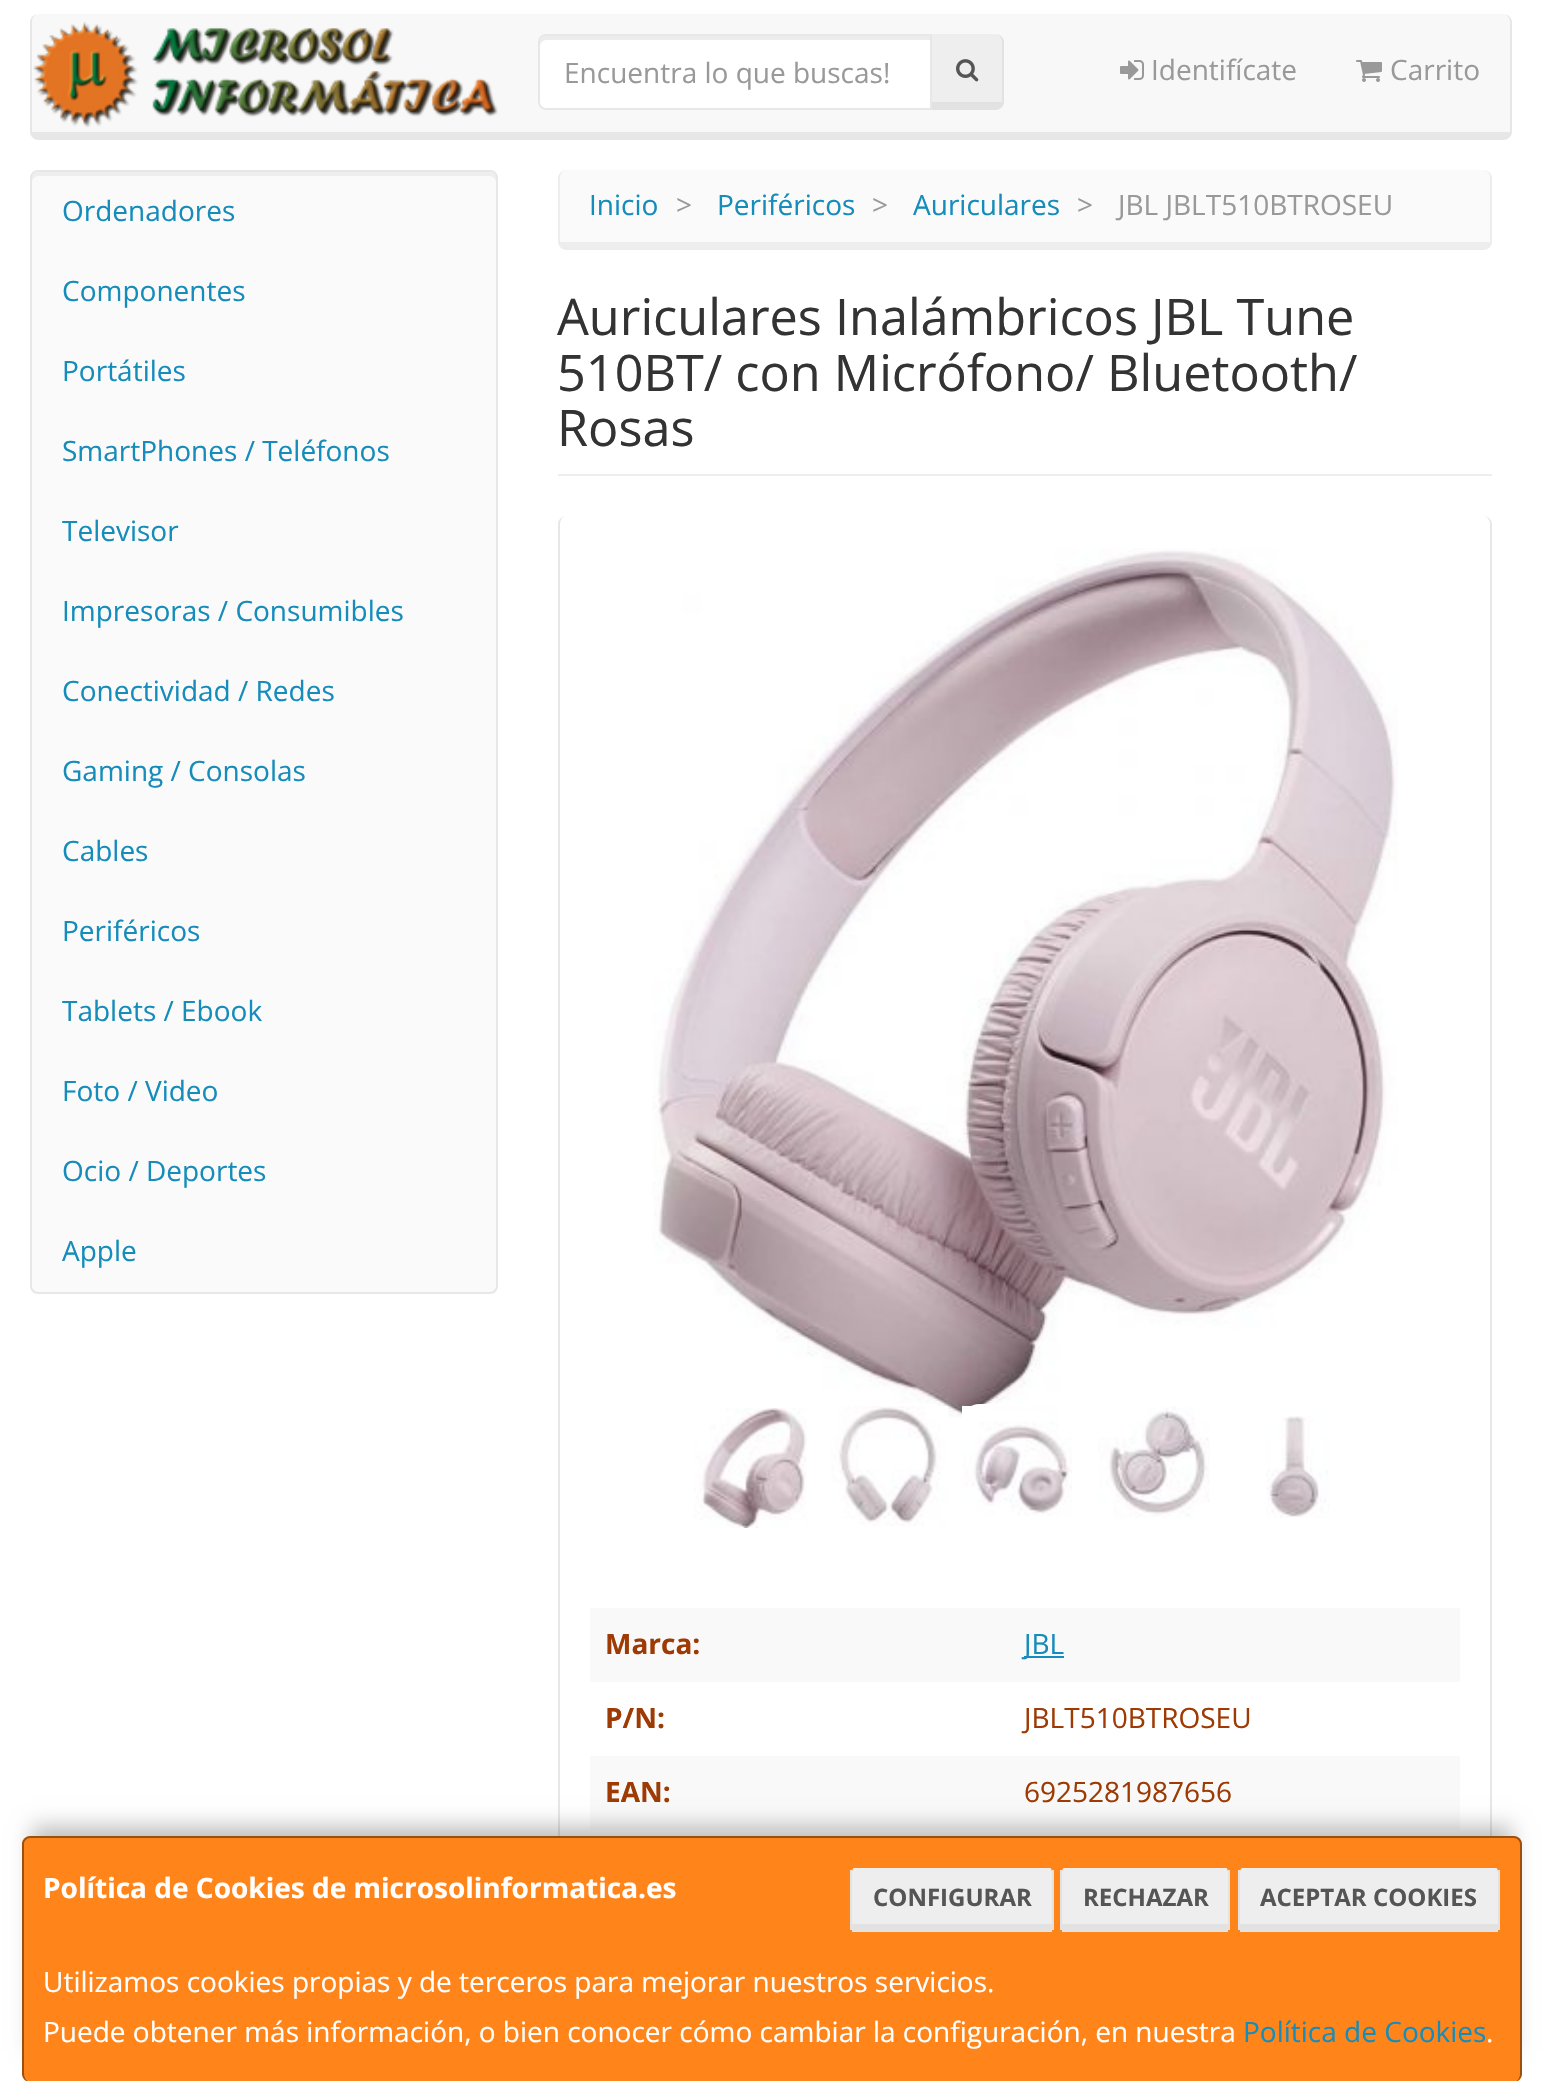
void draw(SkCanvas* canvas) {
	SkPaint fill;
	fill.setAntiAlias(true);
	auto makeFont = [&](const char* family, int weight, float size, bool italic = false) {
		SkFontStyle style(weight, SkFontStyle::kNormal_Width,
			italic ? SkFontStyle::kItalic_Slant : SkFontStyle::kUpright_Slant);
		SkFont result(fontMgr->matchFamilyStyle(family, style), size);
		result.setSubpixel(true);
		return result;
	};
	auto text = [&](const char* s, float x, float y, const SkFont& font) {
		canvas->drawString(s, x, y, font, fill);
	};
	auto box = [&](float l, float t, float r, float b) {
		canvas->drawRect(SkRect::MakeLTRB(l, t, r, b), fill);
	};
	auto roundBox = [&](float l, float t, float r, float b, float radius) {
		canvas->drawRoundRect(SkRect::MakeLTRB(l, t, r, b), radius, radius, fill);
	};
	auto picture = [&](const char* path, float l, float t, float r, float b) {
		auto image = SkImages::DeferredFromEncodedData(SkData::MakeFromFileName(path));
		canvas->drawImageRect(image, SkRect::MakeLTRB(l, t, r, b), SkSamplingOptions());
	};
	canvas->clear(0xFFFFFFFF);
	fill.setColor(0xFFF8F8F8);
	canvas->drawPath(SkPathBuilder().moveTo(38, 14).lineTo(1504, 14).cubicTo(1507, 14, 1510, 18, 1510, 22).lineTo(1510, 132).lineTo(32, 132).lineTo(32, 22).cubicTo(32, 18, 35, 14, 38, 14).close().detach(), fill);
	fill.setColor(0xFFE7E7E7);
	canvas->drawPath(SkPathBuilder(SkPathFillType::kEvenOdd).moveTo(38, 14).lineTo(1504, 14).cubicTo(1508, 14, 1512, 18, 1512, 22).lineTo(1512, 132).cubicTo(1512, 136, 1508, 140, 1504, 140).lineTo(38, 140).cubicTo(34, 140, 30, 136, 30, 132).lineTo(30, 22).cubicTo(30, 18, 34, 14, 38, 14).close().moveTo(38, 14).lineTo(1504, 14).cubicTo(1507, 14, 1510, 18, 1510, 22).lineTo(1510, 132).lineTo(32, 132).lineTo(32, 22).cubicTo(32, 18, 35, 14, 38, 14).close().detach(), fill);
	picture("image0.png", 33, 21, 498, 128);
	fill.setColor(0xFFEEEEEE);
	canvas->drawPath(SkPathBuilder().moveTo(932, 34).lineTo(996, 34).cubicTo(999, 34, 1002, 38, 1002, 42).lineTo(1002, 102).lineTo(932, 102).close().detach(), fill);
	fill.setColor(0xFFE2E2E2);
	canvas->drawPath(SkPathBuilder(SkPathFillType::kEvenOdd).moveTo(930, 34).lineTo(996, 34).cubicTo(1000, 34, 1004, 38, 1004, 42).lineTo(1004, 102).cubicTo(1004, 106, 1000, 110, 996, 110).lineTo(930, 110).close().moveTo(932, 34).lineTo(996, 34).cubicTo(999, 34, 1002, 38, 1002, 42).lineTo(1002, 102).lineTo(932, 102).close().detach(), fill);
	fill.setColor(0xFFFFFFFF);
	canvas->drawPath(SkPathBuilder().moveTo(546, 34).lineTo(932, 34).lineTo(932, 110).lineTo(546, 110).cubicTo(541.5f, 110, 538, 106.5f, 538, 102).lineTo(538, 42).cubicTo(538, 37.5f, 541.5f, 34, 546, 34).close().detach(), fill);
	fill.setColor(0xFFECECEC);
	canvas->drawPath(SkPathBuilder().moveTo(546, 40).lineTo(930, 40).lineTo(930, 36).lineTo(546, 36).cubicTo(540, 36, 540, 42, 540, 46).cubicTo(540, 43, 543, 40, 546, 40).close().detach(), fill);
	fill.setStyle(SkPaint::kStroke_Style);
	fill.setStrokeWidth(2);
	fill.setColor(0xFFE7E7E7);
	canvas->drawPath(SkPathBuilder().moveTo(546, 35).lineTo(931, 35).lineTo(931, 109).lineTo(546, 109).cubicTo(542, 109, 539, 106, 539, 102).lineTo(539, 42).cubicTo(539, 38, 542, 35, 546, 35).close().detach(), fill);
	picture("image1.png", 956, 59, 979, 82);
	picture("image2.png", 1120, 60, 1144, 80);
	picture("image3.png", 1356, 60, 1382, 82);
	fill.setStyle(SkPaint::kFill_Style);
	fill.setColor(0xFFFAFAFA);
	roundBox(30, 170, 498, 1294, 8);
	fill.setColor(0xFFEEEEEE);
	canvas->drawPath(SkPathBuilder().moveTo(38, 176).lineTo(490, 176).cubicTo(493, 176, 496, 179, 496, 182).lineTo(496, 178).cubicTo(496, 175, 493, 172, 490, 172).lineTo(38, 172).cubicTo(35, 172, 32, 175, 32, 178).lineTo(32, 182).cubicTo(32, 179, 35, 176, 38, 176).close().detach(), fill);
	fill.setStyle(SkPaint::kStroke_Style);
	fill.setColor(0xFFE7E7E7);
	canvas->drawRoundRect(SkRect::MakeLTRB(31, 171, 497, 1293), 7, 7, fill);
	fill.setStyle(SkPaint::kFill_Style);
	fill.setColor(0xFFFAFAFA);
	canvas->drawPath(SkPathBuilder().moveTo(566, 170).lineTo(1484, 170).cubicTo(1487, 170, 1490, 174, 1490, 178).lineTo(1490, 242).lineTo(560, 242).lineTo(560, 178).cubicTo(560, 174, 563, 170, 566, 170).close().detach(), fill);
	fill.setColor(0xFFEDEDED);
	canvas->drawPath(SkPathBuilder(SkPathFillType::kEvenOdd).moveTo(566, 170).lineTo(1484, 170).cubicTo(1488, 170, 1492, 174, 1492, 178).lineTo(1492, 242).cubicTo(1492, 246, 1488, 250, 1484, 250).lineTo(566, 250).cubicTo(562, 250, 558, 246, 558, 242).lineTo(558, 178).cubicTo(558, 174, 562, 170, 566, 170).close().moveTo(566, 170).lineTo(1484, 170).cubicTo(1487, 170, 1490, 174, 1490, 178).lineTo(1490, 242).lineTo(560, 242).lineTo(560, 178).cubicTo(560, 174, 563, 170, 566, 170).close().detach(), fill);
	fill.setColor(0xFFEEEEEE);
	box(558, 474, 1492, 476);
	fill.setColor(0xFFE7E7E7);
	canvas->drawPath(SkPathBuilder(SkPathFillType::kEvenOdd).moveTo(566, 516).lineTo(1484, 516).cubicTo(1488, 516, 1492, 520, 1492, 524).lineTo(1492, 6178).cubicTo(1492, 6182, 1488, 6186, 1484, 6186).lineTo(566, 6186).cubicTo(562, 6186, 558, 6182, 558, 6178).lineTo(558, 524).cubicTo(558, 520, 562, 516, 566, 516).close().moveTo(566, 516).lineTo(1484, 516).cubicTo(1487, 516, 1490, 520, 1490, 524).lineTo(1490, 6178).lineTo(560, 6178).lineTo(560, 524).cubicTo(560, 520, 563, 516, 566, 516).close().detach(), fill);
	picture("image4.png", 652, 548, 1398, 1418);
	picture("image5.png", 694, 1408, 807, 1528);
	fill.setStyle(SkPaint::kStroke_Style);
	fill.setColor(0xFFFFFFFF);
	canvas->drawRoundRect(SkRect::MakeLTRB(827, 1405, 949, 1523), 19, 19, fill);
	picture("image6.png", 831, 1406, 948, 1526);
	canvas->drawRoundRect(SkRect::MakeLTRB(961, 1405, 1083, 1523), 19, 19, fill);
	picture("image7.png", 962, 1406, 1072, 1516);
	picture("image8.png", 1098, 1406, 1210, 1519);
	picture("image9.png", 1266, 1416, 1330, 1518);
	fill.setStyle(SkPaint::kFill_Style);
	fill.setColor(0xFFF9F9F9);
	box(590, 1608, 1460, 1682);
	fill.setColor(0xFF158CBA);
	box(1024, 1656, 1064, 1658);
	fill.setColor(0xFFF9F9F9);
	box(590, 1756, 1460, 1830);
	fill.setColor(0x40000000);
	fill.setMaskFilter(SkMaskFilter::MakeBlur(kNormal_SkBlurStyle, 10));
	canvas->drawRect(SkRect::MakeLTRB(32, 1826, 1512, 2052), fill);
	fill.setMaskFilter(nullptr);
	fill.setColor(0xFFFF851B);
	roundBox(22, 1836, 1522, 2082, 8);
	fill.setColor(0x66000000);
	canvas->drawPath(SkPathBuilder(SkPathFillType::kEvenOdd).moveTo(30, 1836).lineTo(1514, 1836).cubicTo(1518, 1836, 1522, 1840, 1522, 1844).lineTo(1522, 2074).cubicTo(1522, 2078, 1518, 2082, 1514, 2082).lineTo(30, 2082).cubicTo(26, 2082, 22, 2078, 22, 2074).lineTo(22, 1844).cubicTo(22, 1840, 26, 1836, 30, 1836).close().moveTo(30, 1838).lineTo(1514, 1838).cubicTo(1517, 1838, 1520, 1841, 1520, 1844).lineTo(1520, 2074).cubicTo(1520, 2078, 1517, 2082, 1514, 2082).lineTo(30, 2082).cubicTo(27, 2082, 24, 2078, 24, 2074).lineTo(24, 1844).cubicTo(24, 1841, 27, 1838, 30, 1838).close().detach(), fill);
	fill.setColor(0xFFEEEEEE);
	canvas->drawPath(SkPathBuilder().moveTo(854, 1868).lineTo(1050, 1868).cubicTo(1051, 1868, 1052, 1870, 1052, 1872).lineTo(1052, 1924).lineTo(852, 1924).lineTo(852, 1872).cubicTo(852, 1870, 853, 1868, 854, 1868).close().detach(), fill);
	fill.setColor(0xFFE2E2E2);
	box(1052, 1870, 1054, 1930);
	box(852, 1924, 1052, 1932);
	box(850, 1870, 852, 1930);
	fill.setColor(0xFFEEEEEE);
	canvas->drawPath(SkPathBuilder().moveTo(1064, 1868).lineTo(1226, 1868).cubicTo(1227, 1868, 1228, 1870, 1228, 1872).lineTo(1228, 1924).lineTo(1062, 1924).lineTo(1062, 1872).cubicTo(1062, 1870, 1063, 1868, 1064, 1868).close().detach(), fill);
	fill.setColor(0xFFE2E2E2);
	box(1228, 1870, 1230, 1930);
	box(1062, 1924, 1228, 1932);
	box(1060, 1870, 1062, 1930);
	fill.setColor(0xFFEEEEEE);
	canvas->drawPath(SkPathBuilder().moveTo(1242, 1868).lineTo(1496, 1868).cubicTo(1497, 1868, 1498, 1870, 1498, 1872).lineTo(1498, 1924).lineTo(1240, 1924).lineTo(1240, 1872).cubicTo(1240, 1870, 1241, 1868, 1242, 1868).close().detach(), fill);
	fill.setColor(0xFFE2E2E2);
	box(1498, 1870, 1500, 1930);
	box(1240, 1924, 1498, 1932);
	box(1238, 1870, 1240, 1930);
	auto font1 = makeFont("Open Sans", 400, 28);
	fill.setColor(0xFF999999);
	text("Encuentra lo que buscas!", 564, 83, font1);
	text("Identifícate", 1151, 80, font1);
	text("Carrito", 1390, 80, font1);
	fill.setColor(0xFF158CBA);
	text("Ordenadores", 62, 221, font1);
	text("Componentes", 62, 301, font1);
	text("Portátiles", 62, 381, font1);
	text("SmartPhones / Teléfonos", 62, 461, font1);
	text("Televisor", 62, 541, font1);
	text("Impresoras / Consumibles", 62, 621, font1);
	text("Conectividad / Redes", 62, 701, font1);
	text("Gaming / Consolas", 62, 781, font1);
	text("Cables", 62, 861, font1);
	text("Periféricos", 62, 941, font1);
	text("Tablets / Ebook", 62, 1021, font1);
	text("Foto / Video", 62, 1101, font1);
	text("Ocio / Deportes", 62, 1181, font1);
	text("Apple", 62, 1261, font1);
	text("Inicio", 589, 215, font1);
	fill.setColor(0xFF999999);
	text(">", 676, 215, font1);
	fill.setColor(0xFF158CBA);
	text("Periféricos", 717, 215, font1);
	fill.setColor(0xFF999999);
	text(">", 872, 215, font1);
	fill.setColor(0xFF158CBA);
	text("Auriculares", 913, 215, font1);
	fill.setColor(0xFF999999);
	text(">", 1077, 215, font1);
	text("JBL JBLT510BTROSEU", 1118, 215, font1);
	auto font2 = makeFont("Open Sans", 400, 50.4f);
	fill.setColor(0xFF333333);
	text("Auriculares Inalámbricos JBL Tune", 557, 335, font2);
	text("510BT/ con Micrófono/ Bluetooth/", 557, 391, font2);
	text("Rosas", 557, 446, font2);
	auto font3 = makeFont("Open Sans", 700, 28);
	fill.setColor(0xFF9E3B04);
	text("Marca:", 605, 1654, font3);
	fill.setColor(0xFF158CBA);
	text("JBL", 1024, 1654, font1);
	fill.setColor(0xFF9E3B04);
	text("P/N:", 605, 1728, font3);
	text("JBLT510BTROSEU", 1024, 1728, font1);
	text("EAN:", 605, 1802, font3);
	text("6925281987656", 1024, 1802, font1);
	fill.setColor(0xFFFFFFFF);
	text("Política de Cookies de microsolinformatica.es", 43, 1898, font3);
	auto font4 = makeFont("Open Sans", 700, 24);
	fill.setColor(0xFF555555);
	text("CONFIGURAR", 873, 1906, font4);
	text("RECHAZAR", 1083, 1906, font4);
	text("ACEPTAR COOKIES", 1260, 1906, font4);
	fill.setColor(0xFFFFFFFF);
	text("Utilizamos cookies propias y de terceros para mejorar nuestros servicios.", 43, 1992, font1);
	text("Puede obtener más información, o bien conocer cómo cambiar la configuración, en nuestra", 43, 2042, font1);
	fill.setColor(0xFF158CBA);
	text("Política de Cookies", 1243, 2042, font1);
	fill.setColor(0xFFFFFFFF);
	text(".", 1486, 2042, font1);
}
